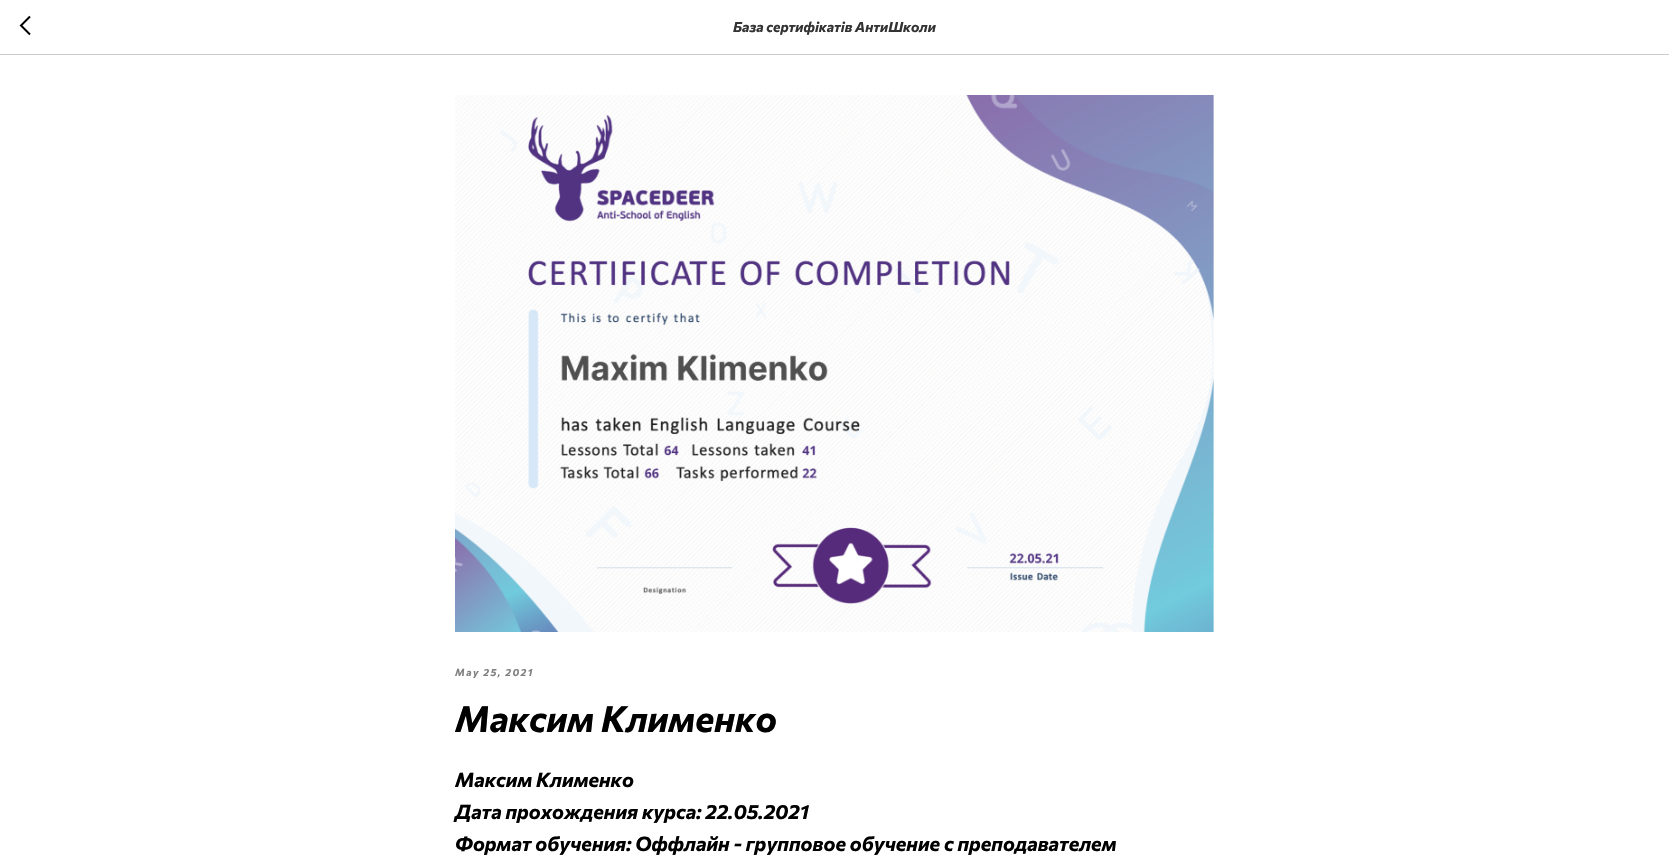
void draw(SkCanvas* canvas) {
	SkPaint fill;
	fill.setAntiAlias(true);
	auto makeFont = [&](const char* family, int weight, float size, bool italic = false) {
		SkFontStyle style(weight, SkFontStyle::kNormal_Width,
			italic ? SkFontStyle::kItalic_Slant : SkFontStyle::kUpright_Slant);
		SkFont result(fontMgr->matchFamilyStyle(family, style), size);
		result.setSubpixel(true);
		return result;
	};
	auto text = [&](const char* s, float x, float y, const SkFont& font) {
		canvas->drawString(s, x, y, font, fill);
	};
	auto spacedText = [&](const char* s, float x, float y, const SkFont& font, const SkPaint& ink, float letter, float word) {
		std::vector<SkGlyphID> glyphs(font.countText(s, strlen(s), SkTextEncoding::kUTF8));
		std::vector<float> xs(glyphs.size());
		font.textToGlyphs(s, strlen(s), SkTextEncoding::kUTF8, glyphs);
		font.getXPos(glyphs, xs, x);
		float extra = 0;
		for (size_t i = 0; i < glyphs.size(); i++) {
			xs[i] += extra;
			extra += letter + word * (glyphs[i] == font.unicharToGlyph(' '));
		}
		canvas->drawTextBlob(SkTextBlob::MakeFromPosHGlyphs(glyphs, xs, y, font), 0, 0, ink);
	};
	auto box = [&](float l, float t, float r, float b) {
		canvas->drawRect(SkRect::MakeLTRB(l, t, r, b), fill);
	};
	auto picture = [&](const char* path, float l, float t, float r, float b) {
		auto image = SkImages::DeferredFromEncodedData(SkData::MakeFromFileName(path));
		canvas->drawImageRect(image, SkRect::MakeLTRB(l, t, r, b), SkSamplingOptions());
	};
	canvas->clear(0xFFFFFFFF);
	fill.setColor(0xFFCCCCCC);
	box(0, 54, 1669, 55);
	fill.setStyle(SkPaint::kStroke_Style);
	fill.setStrokeWidth(2);
	fill.setColor(0xFF000000);
	canvas->drawPath(SkPathBuilder().moveTo(30, 34.5f).lineTo(21, 25.5f).lineTo(30, 16.5f).detach(), fill);
	picture("image0.png", 455, 95, 1214, 632);
	auto font1 = makeFont("Commissioner", 700, 14, true);
	fill.setStyle(SkPaint::kFill_Style);
	fill.setColor(0xFF333333);
	text("База сертифікатів АнтиШколи", 733, 32, font1);
	auto font2 = makeFont("Commissioner", 700, 10, true);
	fill.setColor(0xFF808080);
	spacedText("May 25, 2021", 455, 676, font2, fill, 1.5f, 0);
	auto font3 = makeFont("Commissioner", 700, 36, true);
	fill.setColor(0xFF000000);
	text("Максим Клименко", 455, 732, font3);
	auto font4 = makeFont("Commissioner", 700, 20, true);
	text("Максим Клименко", 455, 787, font4);
	text("Дата прохождения курса: 22.05.2021", 455, 819, font4);
	text("Формат обучения: Оффлайн - групповое обучение с преподавателем", 455, 851, font4);
}
